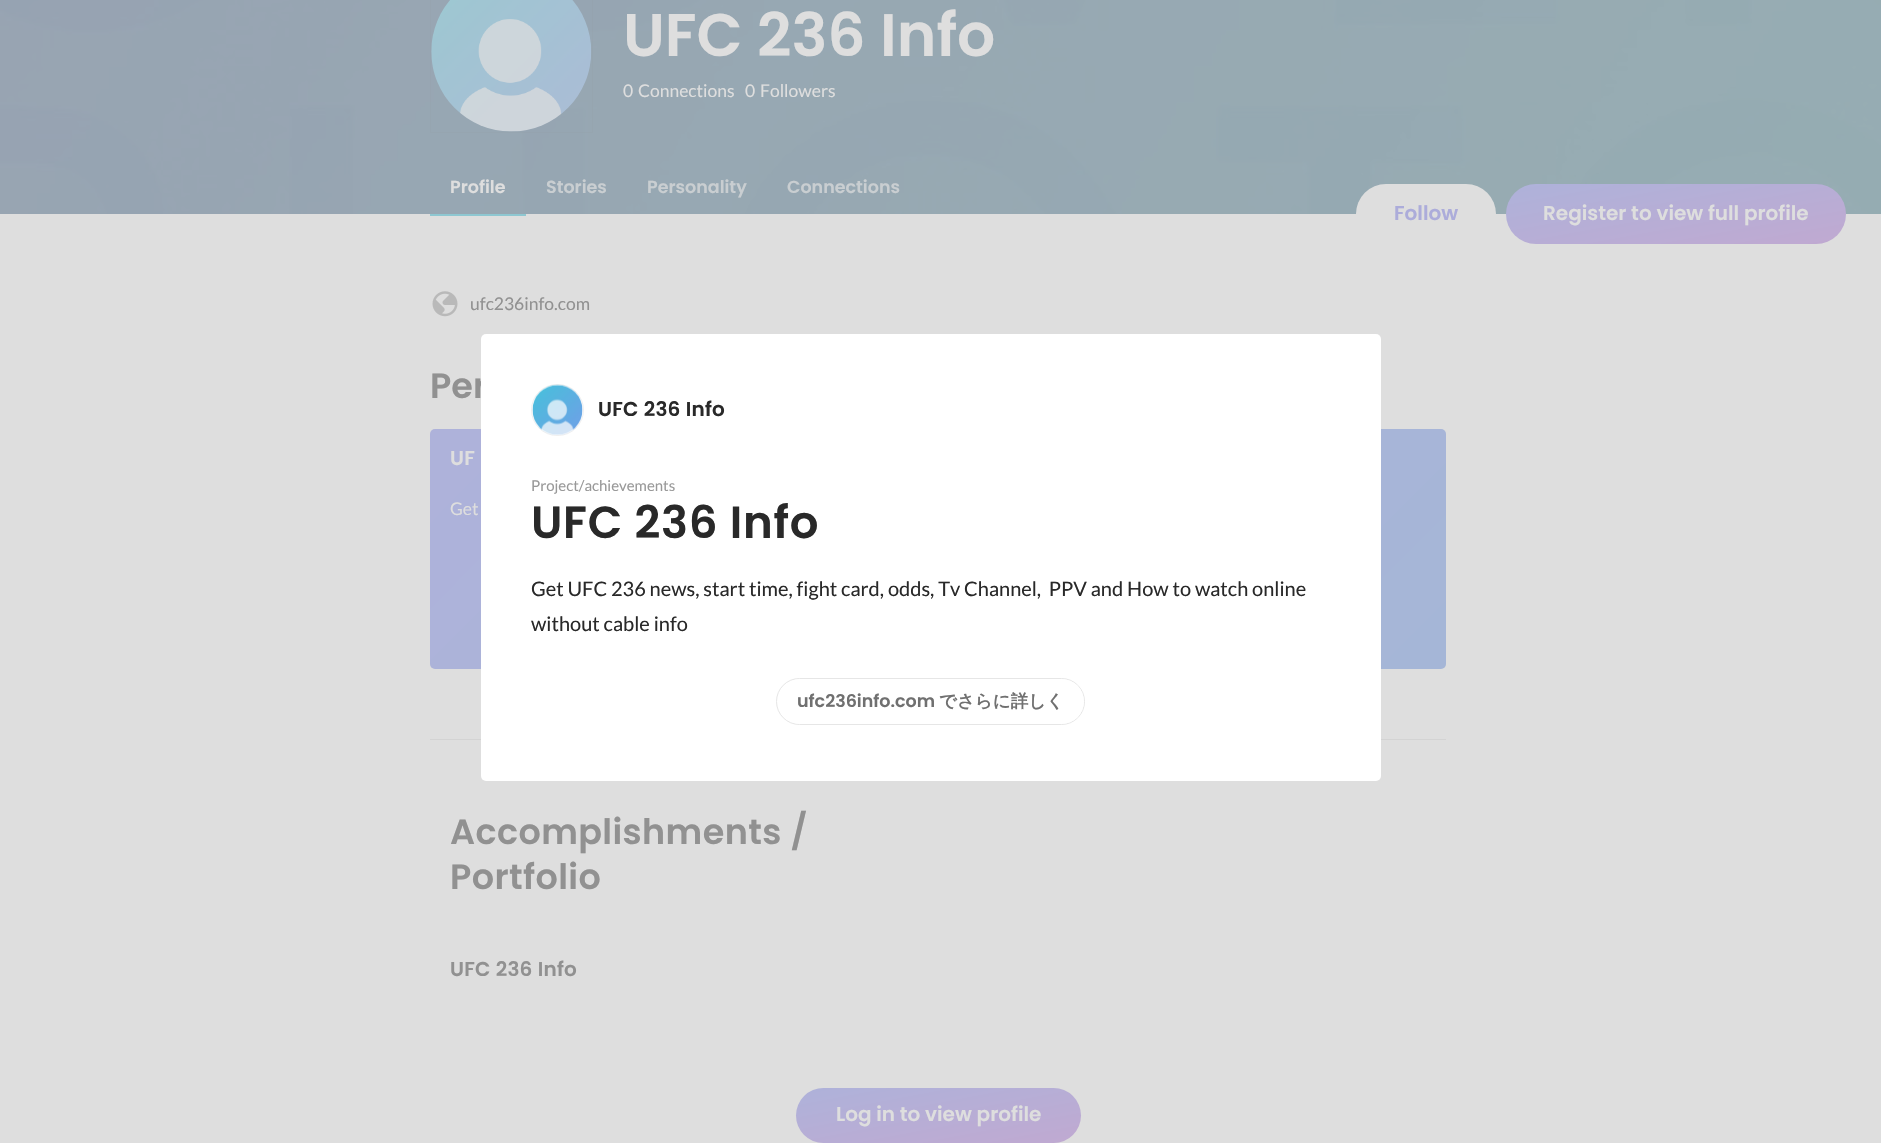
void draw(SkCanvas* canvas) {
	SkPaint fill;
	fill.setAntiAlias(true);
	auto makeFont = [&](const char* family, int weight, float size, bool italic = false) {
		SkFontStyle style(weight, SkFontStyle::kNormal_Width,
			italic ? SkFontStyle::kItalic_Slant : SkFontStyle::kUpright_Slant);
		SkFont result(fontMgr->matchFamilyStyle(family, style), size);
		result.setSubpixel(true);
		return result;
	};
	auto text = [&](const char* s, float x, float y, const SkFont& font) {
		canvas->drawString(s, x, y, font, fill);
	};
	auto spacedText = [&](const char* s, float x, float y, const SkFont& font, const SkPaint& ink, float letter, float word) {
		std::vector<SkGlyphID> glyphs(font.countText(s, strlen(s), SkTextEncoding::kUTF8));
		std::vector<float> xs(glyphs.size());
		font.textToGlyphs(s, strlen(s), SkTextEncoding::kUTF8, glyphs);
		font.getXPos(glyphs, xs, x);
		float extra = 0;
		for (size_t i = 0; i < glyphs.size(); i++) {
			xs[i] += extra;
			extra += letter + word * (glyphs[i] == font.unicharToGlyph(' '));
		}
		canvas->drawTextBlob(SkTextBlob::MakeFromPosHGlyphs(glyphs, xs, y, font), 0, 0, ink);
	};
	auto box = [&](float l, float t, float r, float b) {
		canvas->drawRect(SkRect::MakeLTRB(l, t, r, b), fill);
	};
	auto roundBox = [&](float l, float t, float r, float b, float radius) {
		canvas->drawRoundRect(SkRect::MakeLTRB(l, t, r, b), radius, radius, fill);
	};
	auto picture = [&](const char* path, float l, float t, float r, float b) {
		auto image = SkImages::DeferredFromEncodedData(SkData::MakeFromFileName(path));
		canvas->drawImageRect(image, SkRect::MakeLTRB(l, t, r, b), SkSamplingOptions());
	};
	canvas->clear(0xFFDEDEDE);
	picture("image0.png", 0, 0, 1881, 214);
	fill.setStyle(SkPaint::kStroke_Style);
	fill.setStrokeWidth(1);
	fill.setColor(0x0F838383);
	canvas->drawRect(SkRect::MakeLTRB(430.5f, -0.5f, 592.5f, 132.5f), fill);
	picture("image1.png", 431, 0, 592, 132);
	fill.setStyle(SkPaint::kFill_Style);
	fill.setColor(0xFF8EC7D1);
	box(430, 214, 526, 216);
	fill.setColor(0xFFDEDEDE);
	roundBox(1356, 184, 1496, 244, 30);
	{
		const SkColor colors[] = {0xFFAEB2DA, 0xFFC0A9D1};
		const float stops[] = {0, 1};
		const SkPoint ends[] = {{1666, 156}, {1687, 272}};
		fill.setShader(SkGradientShader::MakeLinear(ends, colors, stops, 2, SkTileMode::kClamp));
		fill.setAlpha(255);
	}
	roundBox(1506, 184, 1846, 244, 30);
	picture("image2.png", 432, 291, 458, 317);
	{
		const SkColor colors[] = {0xFFAEB2DA, 0xFFA5B6D7};
		const float stops[] = {0.02f, 1};
		const SkPoint ends[] = {{622, 235}, {1255, 862}};
		fill.setShader(SkGradientShader::MakeLinear(ends, colors, stops, 2, SkTileMode::kClamp));
		fill.setAlpha(255);
	}
	roundBox(430, 429, 1446, 669, 5);
	fill.setShader(nullptr);
	fill.setColor(0xFFD3D3D3);
	box(430, 739, 1446, 740);
	{
		const SkColor colors[] = {0xFFAEB2DA, 0xFFC0A9D1};
		const float stops[] = {0, 1};
		const SkPoint ends[] = {{929, 1062}, {949, 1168}};
		fill.setShader(SkGradientShader::MakeLinear(ends, colors, stops, 2, SkTileMode::kClamp));
		fill.setAlpha(255);
	}
	roundBox(796, 1088, 1081, 1143, 27.5f);
	auto font1 = makeFont("Poppins", 600, 60);
	fill.setShader(nullptr);
	fill.setColor(0xFFDEDEDE);
	text("UFC 236 Info", 623, 56, font1);
	auto font2 = makeFont("Lato", 400, 17.5f);
	text("0", 623, 97, font2);
	text("Connections", 638, 97, font2);
	text("0", 745, 97, font2);
	text("Followers", 760, 97, font2);
	auto font3 = makeFont("Poppins", 600, 17.5f);
	text("Profile", 450, 193, font3);
	fill.setColor(0xFFC9CED1);
	text("Stories", 546, 193, font3);
	text("Personality", 647, 193, font3);
	text("Connections", 787, 193, font3);
	auto font4 = makeFont("Poppins", 600, 20);
	fill.setColor(0xFFACACDA);
	text("Follow", 1394, 220, font4);
	fill.setColor(0xFFDEDEDE);
	text("Register to view full profile", 1543, 220, font4);
	fill.setColor(0xFF919191);
	text("ufc236info.com", 470, 310, font2);
	auto font5 = makeFont("Poppins", 600, 35);
	text("Per", 430, 398, font5);
	fill.setColor(0xFFDEDEDE);
	spacedText("UF", 450, 465, font4, fill, 0.25f, 0);
	text("Get", 450, 515, font2);
	fill.setColor(0xFF919191);
	spacedText("Accomplishments /", 450, 844, font5, fill, 0.4f, 0);
	spacedText("Portfolio", 450, 889, font5, fill, 0.4f, 0);
	spacedText("UFC 236 Info", 450, 976, font4, fill, 0.25f, 0);
	fill.setColor(0xFFDEDEDE);
	text("Log in to view profile", 836, 1121, font4);
	fill.setColor(0xFFFFFFFF);
	roundBox(481, 334, 1381, 781, 5);
	fill.setStyle(SkPaint::kStroke_Style);
	fill.setColor(0xFFF0F0F0);
	canvas->drawRoundRect(SkRect::MakeLTRB(531.5f, 384.5f, 583.5f, 435.5f), 25.5f, 25.5f, fill);
	picture("image3.png", 532, 384, 583, 435);
	fill.setStyle(SkPaint::kFill_Style);
	fill.setColor(0xFF292929);
	spacedText("UFC 236 Info", 598, 416, font4, fill, 0.25f, 0);
	auto font6 = makeFont("Lato", 400, 15);
	fill.setColor(0xFF999999);
	text("Project/achievements", 531, 491, font6);
	auto font7 = makeFont("Poppins", 600, 45);
	fill.setColor(0xFF292929);
	spacedText("UFC 236 Info", 531, 538, font7, fill, 0.75f, 0);
	auto font8 = makeFont("Lato", 400, 20);
	text("Get UFC 236 news, start time, fight card, odds, Tv Channel,  PPV and How to watch online", 531, 596, font8);
	text("without cable info", 531, 631, font8);
	fill.setStyle(SkPaint::kStroke_Style);
	fill.setColor(0xFFE6E6E6);
	canvas->drawRoundRect(SkRect::MakeLTRB(776.5f, 678.5f, 1084.5f, 724.5f), 23, 23, fill);
	fill.setStyle(SkPaint::kFill_Style);
	fill.setColor(0xFFFFFFFF);
	roundBox(778, 679, 1084, 724, 22.5f);
	fill.setColor(0xFF707070);
	text("ufc236info.com", 797, 707, font3);
	auto font9 = makeFont("WenQuanYi Zen Hei", 700, 17.5f);
	text("でさらに詳しく", 939, 707, font9);
}
